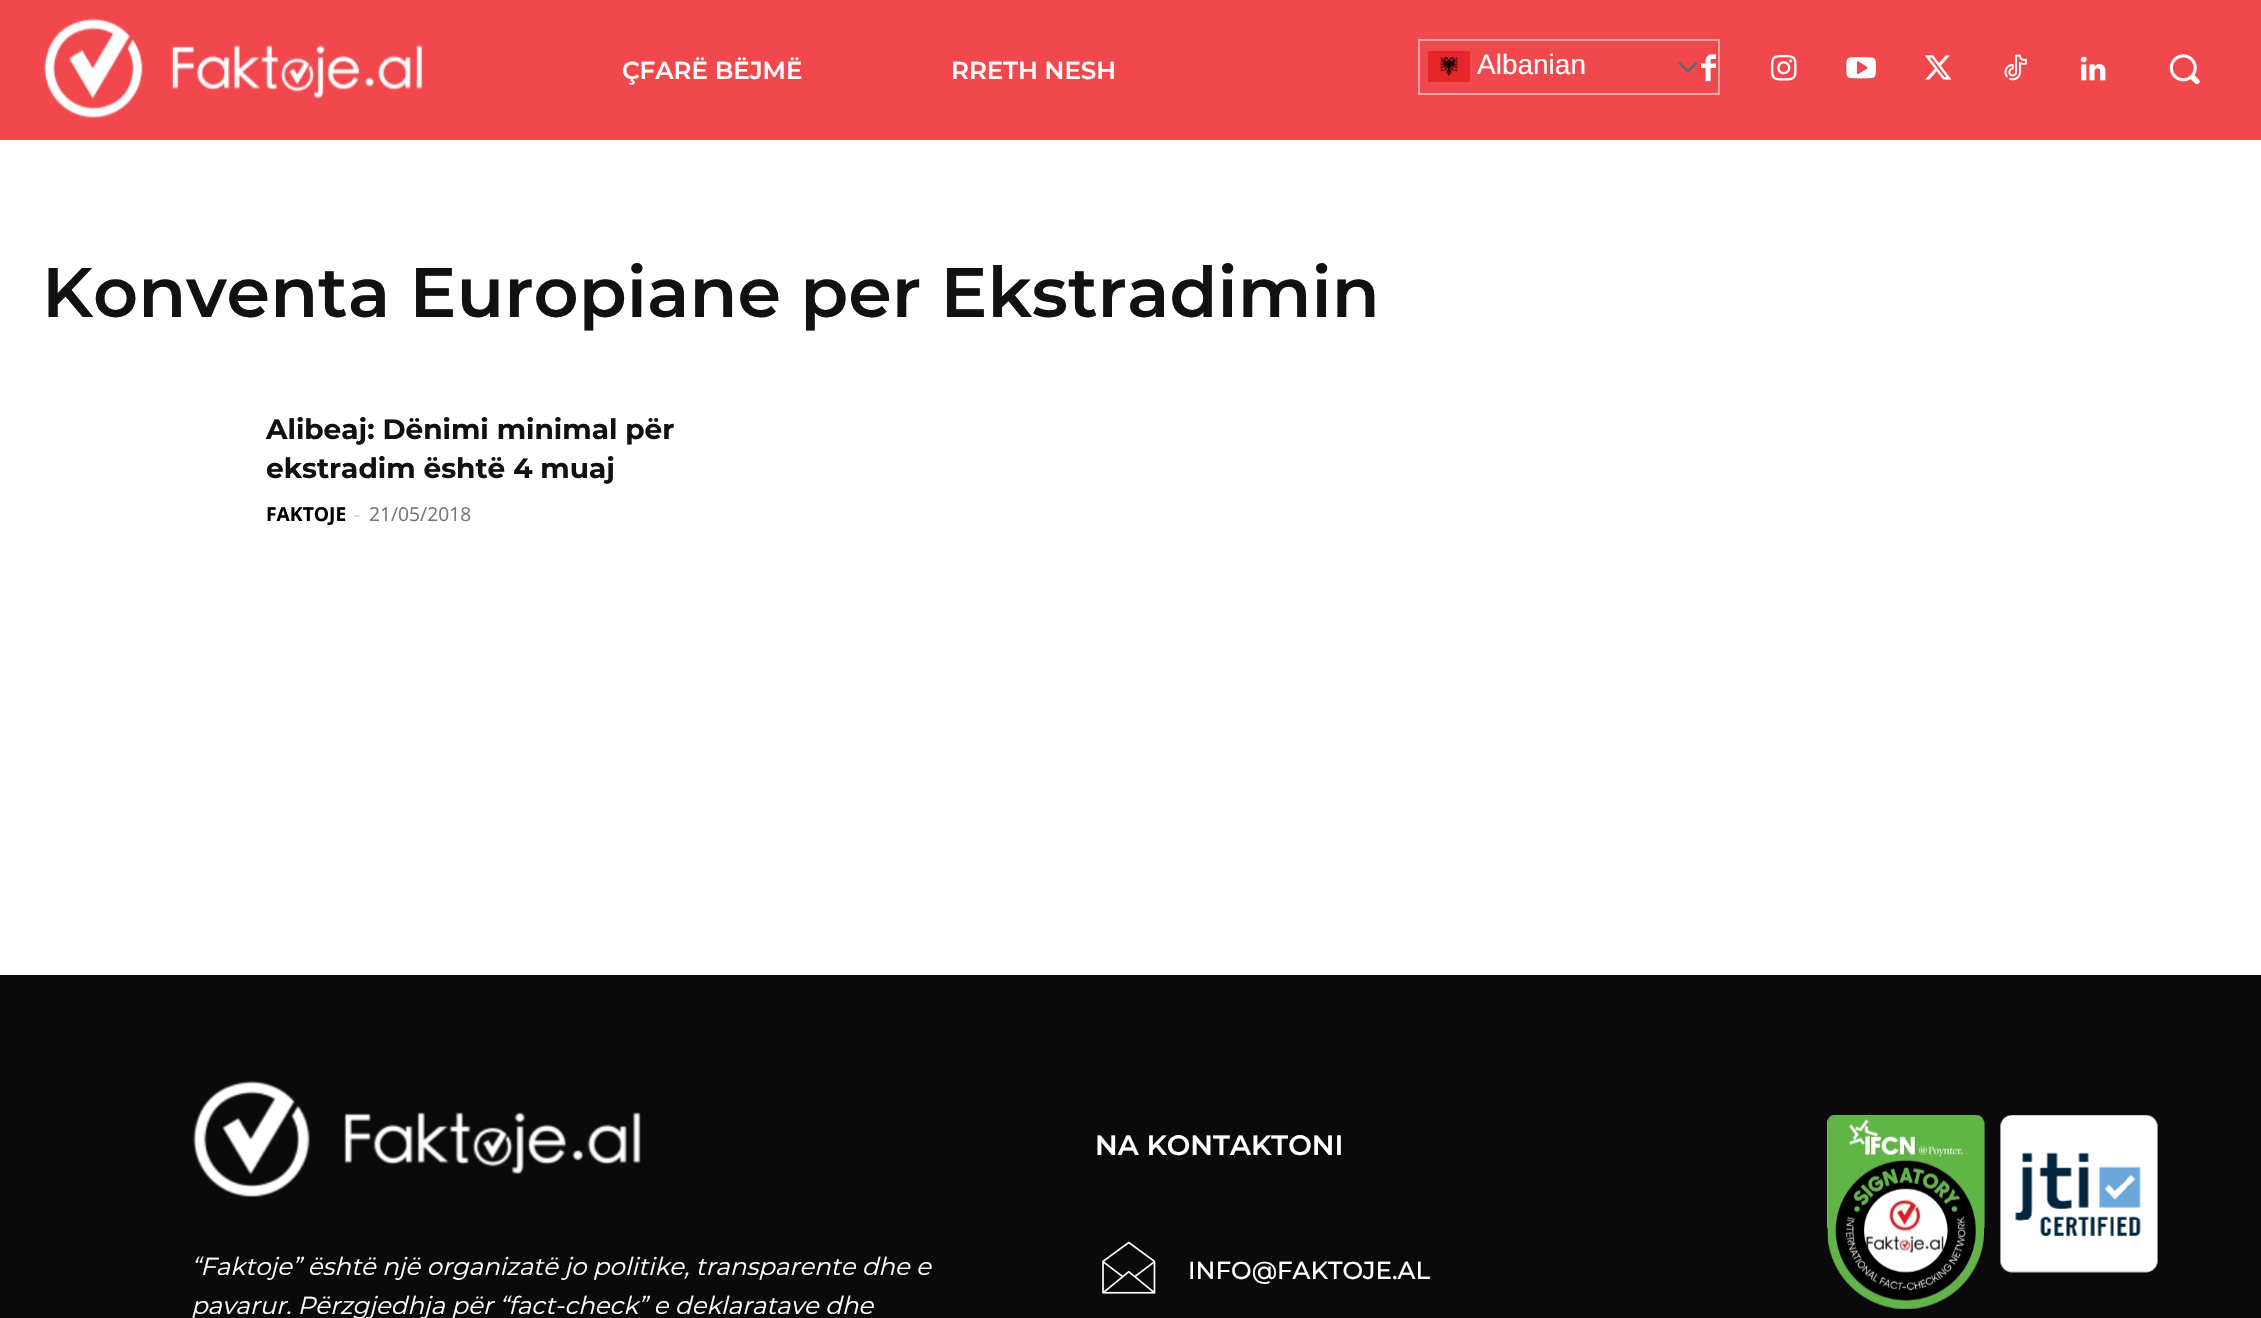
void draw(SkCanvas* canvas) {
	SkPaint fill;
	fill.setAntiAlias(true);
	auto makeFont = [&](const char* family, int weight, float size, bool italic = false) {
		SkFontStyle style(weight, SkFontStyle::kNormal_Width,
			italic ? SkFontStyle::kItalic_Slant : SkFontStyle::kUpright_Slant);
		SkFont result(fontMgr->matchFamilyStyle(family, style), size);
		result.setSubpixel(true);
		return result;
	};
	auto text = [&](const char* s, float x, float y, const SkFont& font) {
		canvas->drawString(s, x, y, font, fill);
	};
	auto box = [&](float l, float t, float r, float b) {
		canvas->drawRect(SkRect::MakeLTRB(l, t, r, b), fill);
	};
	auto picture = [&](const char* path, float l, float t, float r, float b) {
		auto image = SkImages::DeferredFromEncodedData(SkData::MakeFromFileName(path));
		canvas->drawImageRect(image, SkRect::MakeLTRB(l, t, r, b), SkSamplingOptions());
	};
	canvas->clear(0xFFFFFFFF);
	fill.setColor(0xFFF0484D);
	box(0, 0, 2261, 140);
	picture("image0.png", 44, 18, 423, 119);
	fill.setStyle(SkPaint::kStroke_Style);
	fill.setStrokeWidth(2);
	fill.setColor(0xFFF8A4A6);
	canvas->drawRect(SkRect::MakeLTRB(1419, 40, 1719, 94), fill);
	picture("image1.png", 1428, 51, 1470, 82);
	picture("image2.png", 1678, 61, 1698, 73);
	picture("image3.png", 1701, 54, 1716, 82);
	picture("image4.png", 1771, 55, 1797, 81);
	picture("image5.png", 1846, 57, 1876, 79);
	picture("image6.png", 1924, 55, 1952, 80);
	picture("image7.png", 2004, 54, 2027, 81);
	picture("image8.png", 2080, 56, 2106, 81);
	picture("image9.png", 2169, 54, 2200, 85);
	fill.setStyle(SkPaint::kFill_Style);
	fill.setColor(0xFF0A0A0A);
	box(0, 975, 2261, 1318);
	picture("image10.png", 193, 1080, 641, 1198);
	picture("image11.png", 1102, 1241, 1156, 1294);
	picture("image12.png", 1827, 1115, 1985, 1309);
	picture("image13.png", 2000, 1115, 2158, 1273);
	auto font1 = makeFont("Montserrat", 600, 24.5f);
	fill.setColor(0xFFFFFFFF);
	text("ÇFARË BËJMË", 622, 79, font1);
	text("RRETH NESH", 951, 79, font1);
	auto font2 = makeFont("Liberation Sans", 400, 28);
	text("Albanian", 1477, 74, font2);
	auto font3 = makeFont("Montserrat", 600, 70);
	fill.setColor(0xFF111111);
	text("Konventa Europiane per Ekstradimin", 42, 317, font3);
	auto font4 = makeFont("Montserrat", 700, 28);
	text("Alibeaj: Dënimi minimal për", 266, 439, font4);
	text("ekstradim është 4 muaj", 266, 478, font4);
	auto font5 = makeFont("Open Sans", 700, 19.25f);
	fill.setColor(0xFF000000);
	text("FAKTOJE", 266, 521, font5);
	auto font6 = makeFont("Open Sans", 400, 19.25f);
	fill.setColor(0xFFCCCCCC);
	text("-", 354, 521, font6);
	fill.setColor(0xFF767676);
	text("21/05/2018", 369, 521, font6);
	auto font7 = makeFont("Montserrat", 400, 24.5f, true);
	fill.setColor(0xFFFFFFFF);
	text("“Faktoje” është një organizatë jo politike, transparente dhe e", 191, 1275, font7);
	text("pavarur. Përzgjedhja për “fact-check” e deklaratave dhe", 191, 1314, font7);
	auto font8 = makeFont("Montserrat", 600, 28);
	text("NA KONTAKTONI", 1095, 1155, font8);
	auto font9 = makeFont("Montserrat", 500, 24.5f);
	text("INFO@FAKTOJE.AL", 1188, 1279, font9);
}
